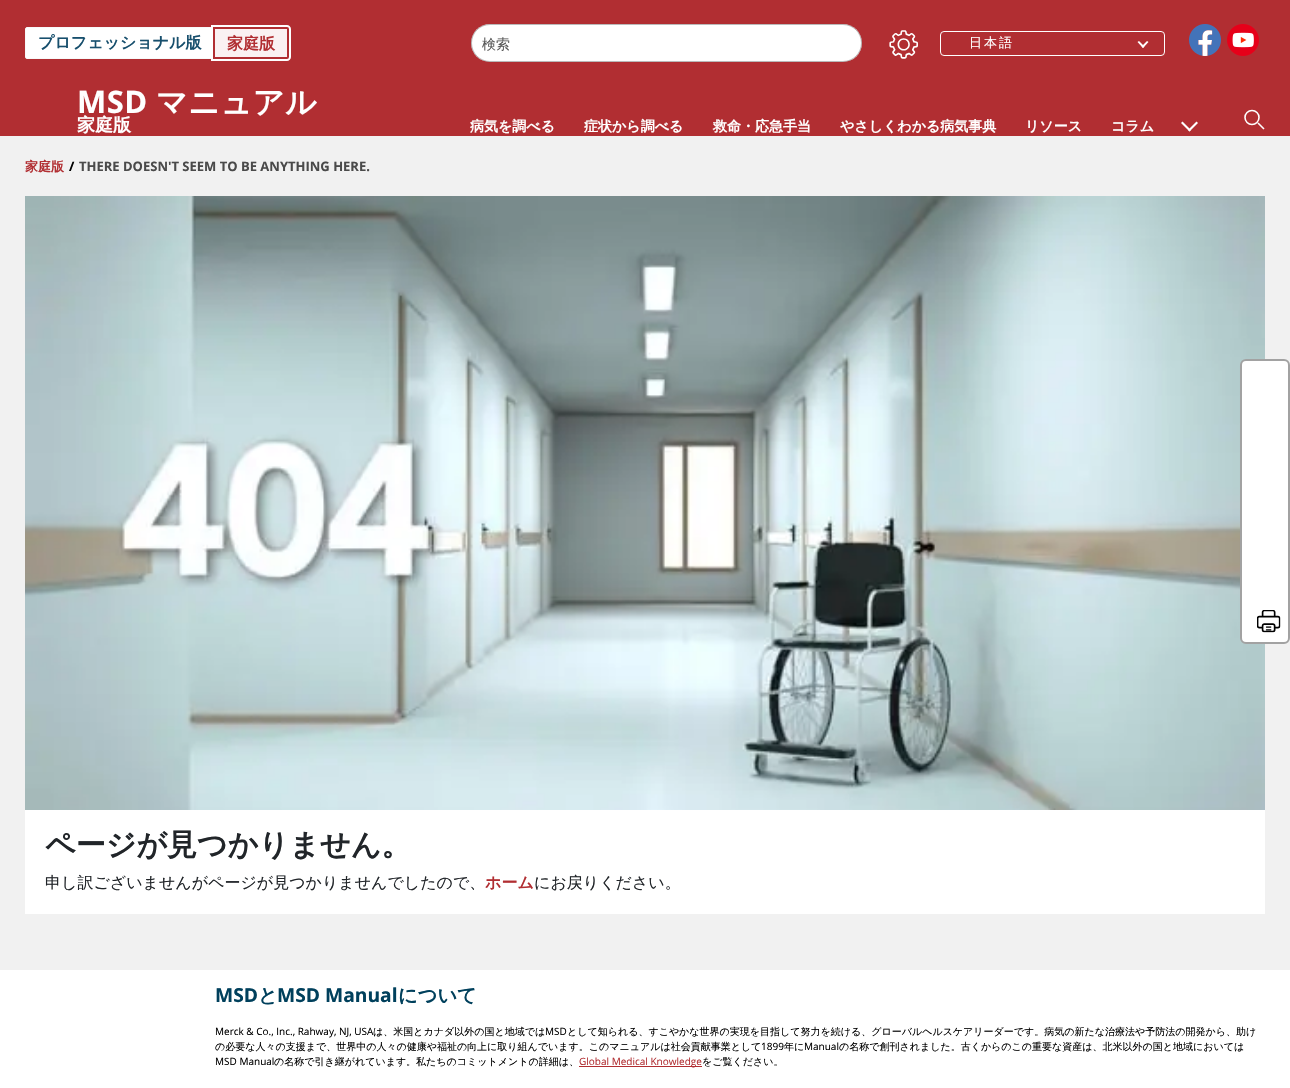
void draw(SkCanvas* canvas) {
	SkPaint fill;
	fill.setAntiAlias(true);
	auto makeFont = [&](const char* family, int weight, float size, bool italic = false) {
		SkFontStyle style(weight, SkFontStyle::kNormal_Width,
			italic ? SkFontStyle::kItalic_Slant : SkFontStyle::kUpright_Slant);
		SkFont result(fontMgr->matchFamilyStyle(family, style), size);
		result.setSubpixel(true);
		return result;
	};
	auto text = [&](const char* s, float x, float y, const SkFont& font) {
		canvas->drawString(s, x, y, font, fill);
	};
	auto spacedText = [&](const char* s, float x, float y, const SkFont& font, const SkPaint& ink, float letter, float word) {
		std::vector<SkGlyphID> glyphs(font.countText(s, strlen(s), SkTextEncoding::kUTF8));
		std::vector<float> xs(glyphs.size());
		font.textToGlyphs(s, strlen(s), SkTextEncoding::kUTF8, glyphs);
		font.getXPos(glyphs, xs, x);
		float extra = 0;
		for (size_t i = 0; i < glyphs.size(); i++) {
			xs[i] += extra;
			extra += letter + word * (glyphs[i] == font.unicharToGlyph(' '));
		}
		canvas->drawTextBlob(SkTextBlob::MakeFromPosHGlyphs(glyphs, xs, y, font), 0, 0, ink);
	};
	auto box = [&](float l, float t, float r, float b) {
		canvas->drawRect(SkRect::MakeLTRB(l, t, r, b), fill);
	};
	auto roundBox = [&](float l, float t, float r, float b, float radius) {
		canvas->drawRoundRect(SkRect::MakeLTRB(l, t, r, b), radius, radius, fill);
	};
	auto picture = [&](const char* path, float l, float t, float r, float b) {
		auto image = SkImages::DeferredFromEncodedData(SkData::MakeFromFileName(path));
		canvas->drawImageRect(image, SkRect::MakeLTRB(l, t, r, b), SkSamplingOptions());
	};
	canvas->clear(0xFFF1F1F1);
	fill.setColor(0xFFB12E32);
	box(0, 0, 1290, 136);
	fill.setColor(0xFFFFFFFF);
	canvas->drawPath(SkPathBuilder().moveTo(27, 27.5f).lineTo(213.5f, 27.5f).lineTo(213.5f, 58.5f).lineTo(27, 58.5f).cubicTo(26, 58.5f, 25.5f, 58, 25.5f, 57).lineTo(25.5f, 29).cubicTo(25.5f, 28, 26, 27.5f, 27, 27.5f).close().detach(), fill);
	fill.setStyle(SkPaint::kStroke_Style);
	fill.setStrokeWidth(1);
	fill.setColor(0xFFF8F9FA);
	canvas->drawPath(SkPathBuilder().moveTo(27, 27.5f).lineTo(213.5f, 27.5f).lineTo(213.5f, 58.5f).lineTo(27, 58.5f).cubicTo(26, 58.5f, 25.5f, 58, 25.5f, 57).lineTo(25.5f, 29).cubicTo(25.5f, 28, 26, 27.5f, 27, 27.5f).close().detach(), fill);
	fill.setStyle(SkPaint::kFill_Style);
	fill.setColor(0xFFFAF1F2);
	canvas->drawPath(SkPathBuilder().moveTo(214, 28).lineTo(287, 28).cubicTo(287.5f, 28, 288, 28.5f, 288, 29).lineTo(288, 57).cubicTo(288, 57.5f, 287.5f, 58, 287, 58).lineTo(214, 58).close().detach(), fill);
	fill.setStyle(SkPaint::kStroke_Style);
	fill.setStrokeWidth(2);
	fill.setColor(0xFFB12E32);
	canvas->drawPath(SkPathBuilder().moveTo(214, 28).lineTo(287, 28).cubicTo(287.5f, 28, 288, 28.5f, 288, 29).lineTo(288, 57).cubicTo(288, 57.5f, 287.5f, 58, 287, 58).lineTo(214, 58).close().detach(), fill);
	fill.setColor(0xFFFFFFFF);
	canvas->drawPath(SkPathBuilder().moveTo(212, 26).lineTo(287, 26).cubicTo(288.5f, 26, 290, 27.5f, 290, 29).lineTo(290, 57).cubicTo(290, 58.5f, 288.5f, 60, 287, 60).lineTo(212, 60).close().detach(), fill);
	fill.setStyle(SkPaint::kFill_Style);
	roundBox(471, 24, 862, 62, 19);
	fill.setStyle(SkPaint::kStroke_Style);
	fill.setStrokeWidth(1);
	fill.setColor(0x45000000);
	canvas->drawRoundRect(SkRect::MakeLTRB(471.5f, 24.5f, 861.5f, 61.5f), 18.5f, 18.5f, fill);
	picture("image0.png", 889, 30, 918, 59);
	fill.setColor(0xFFFFFFFF);
	canvas->drawRoundRect(SkRect::MakeLTRB(940.5f, 31.5f, 1164.5f, 55.5f), 3.5f, 3.5f, fill);
	fill.setStyle(SkPaint::kFill_Style);
	canvas->drawPath(SkPathBuilder().moveTo(1147, 41).lineTo(1148.5f, 42).lineTo(1143, 48).lineTo(1141.5f, 46.5f).close().detach(), fill);
	canvas->drawPath(SkPathBuilder().moveTo(1139, 41).lineTo(1144.5f, 46.5f).lineTo(1143, 48).lineTo(1137.5f, 42).close().detach(), fill);
	picture("image1.png", 1189, 24, 1221, 56);
	picture("image2.png", 1227, 24, 1259, 56);
	canvas->drawPath(SkPathBuilder().moveTo(1196.5f, 121.5f).lineTo(1198, 123).lineTo(1189.5f, 131.5f).lineTo(1188, 130).close().detach(), fill);
	canvas->drawPath(SkPathBuilder().moveTo(1182.5f, 121.5f).lineTo(1191, 130).lineTo(1189.5f, 131.5f).lineTo(1181, 123).close().detach(), fill);
	fill.setStyle(SkPaint::kStroke_Style);
	fill.setStrokeWidth(1.6f);
	canvas->drawCircle(1252, 117.5f, 7, fill);
	canvas->drawPath(SkPathBuilder().moveTo(1264, 129).lineTo(1258, 123).detach(), fill);
	picture("image4.png", 25, 196, 1265, 810);
	fill.setStyle(SkPaint::kFill_Style);
	canvas->drawRoundRect(SkRect::MakeLTRB(1241, 360, 1289, 643), 5, 5, fill);
	fill.setStyle(SkPaint::kStroke_Style);
	fill.setStrokeWidth(2);
	fill.setColor(0xFFA2A2A2);
	canvas->drawRoundRect(SkRect::MakeLTRB(1241, 360, 1289, 643), 5, 5, fill);
	picture("image3.png", 1257, 610, 1281, 633);
	fill.setStyle(SkPaint::kFill_Style);
	fill.setColor(0xFFFFFFFF);
	box(25, 810, 1265, 914);
	box(0, 970, 1290, 1088);
	fill.setColor(0xFFB12E32);
	box(579, 1066, 702, 1067);
	auto font1 = makeFont("WenQuanYi Zen Hei", 700, 16);
	fill.setColor(0xFF174F6D);
	text("プロフェッショナル版", 38, 48, font1);
	fill.setColor(0xFFB12E32);
	text("家庭版", 227, 49, font1);
	auto font2 = makeFont("WenQuanYi Zen Hei", 500, 14);
	fill.setColor(0xFF595959);
	text("検索", 482, 49, font2);
	auto font3 = makeFont("WenQuanYi Zen Hei", 500, 13);
	fill.setColor(0xFFFFFFFF);
	spacedText("日本語", 969, 47, font3, fill, 2, 0);
	auto font4 = makeFont("Open Sans", 700, 31);
	spacedText("MSD", 77, 113, font4, fill, 0.5f, 0);
	auto font5 = makeFont("WenQuanYi Zen Hei", 700, 31);
	spacedText("マニュアル", 156, 113, font5, fill, 0.5f, 0);
	auto font6 = makeFont("WenQuanYi Zen Hei", 700, 18);
	text("家庭版", 77, 131, font6);
	auto font7 = makeFont("WenQuanYi Zen Hei", 700, 14);
	text("病気を調べる", 470, 131, font7);
	text("症状から調べる", 584, 131, font7);
	text("救命・応急手当", 713, 131, font7);
	text("やさしくわかる病気事典", 840, 131, font7);
	text("リソース", 1025, 131, font7);
	text("コラム", 1111, 131, font7);
	auto font8 = makeFont("WenQuanYi Zen Hei", 700, 13);
	fill.setColor(0xFFB12E32);
	text("家庭版", 25, 171, font8);
	auto font9 = makeFont("Open Sans", 700, 13);
	fill.setColor(0xFF000000);
	text("/", 69, 171, font9);
	fill.setColor(0xFF4A4A4A);
	text("THERE DOESN'T SEEM TO BE ANYTHING HERE.", 79, 171, font9);
	auto font10 = makeFont("WenQuanYi Zen Hei", 700, 30);
	fill.setColor(0xFF212529);
	text("ページが見つかりません。", 45, 855, font10);
	auto font11 = makeFont("WenQuanYi Zen Hei", 500, 16);
	text("申し訳ございませんがページが見つかりませんでしたので、", 45, 888, font11);
	fill.setColor(0xFFB12E32);
	text("ホーム", 485, 888, font1);
	fill.setColor(0xFF212529);
	text("にお戻りください。", 534, 888, font11);
	auto font12 = makeFont("Open Sans", 700, 19.25f);
	fill.setColor(0xFF00405C);
	text("MSD", 215, 1002, font12);
	auto font13 = makeFont("WenQuanYi Zen Hei", 700, 19.25f);
	text("と", 258, 1002, font13);
	text("MSD Manual", 277, 1002, font12);
	text("について", 398, 1002, font13);
	auto font14 = makeFont("Open Sans", 400, 10);
	fill.setColor(0xFF000000);
	text("Merck & Co., Inc., Rahway, NJ, USA", 215, 1035, font14);
	auto font15 = makeFont("WenQuanYi Zen Hei", 500, 10);
	text("は、米国とカナダ以外の国と地域では", 373, 1035, font15);
	text("MSD", 545, 1035, font14);
	text("として知られる、すこやかな世界の実現を目指して努力を続ける、グローバルヘルスケアリーダーです。病気の新たな治療法や予防法の開発から、助け", 567, 1035, font15);
	text("の必要な人々の支援まで、世界中の人々の健康や福祉の向上に取り組んでいます。このマニュアルは社会貢献事業として", 215, 1050, font15);
	text("1899", 761, 1050, font14);
	text("年に", 784, 1050, font15);
	text("Manual", 804, 1050, font14);
	text("の名称で創刊されました。古くからのこの重要な資産は、北米以外の国と地域においては", 839, 1050, font15);
	text("MSD Manual", 215, 1065, font14);
	text("の名称で引き継がれています。私たちのコミットメントの詳細は、", 274, 1065, font15);
	fill.setColor(0xFFB12E32);
	text("Global Medical Knowledge", 579, 1065, font14);
	fill.setColor(0xFF000000);
	text("をご覧ください。", 702, 1065, font15);
}
